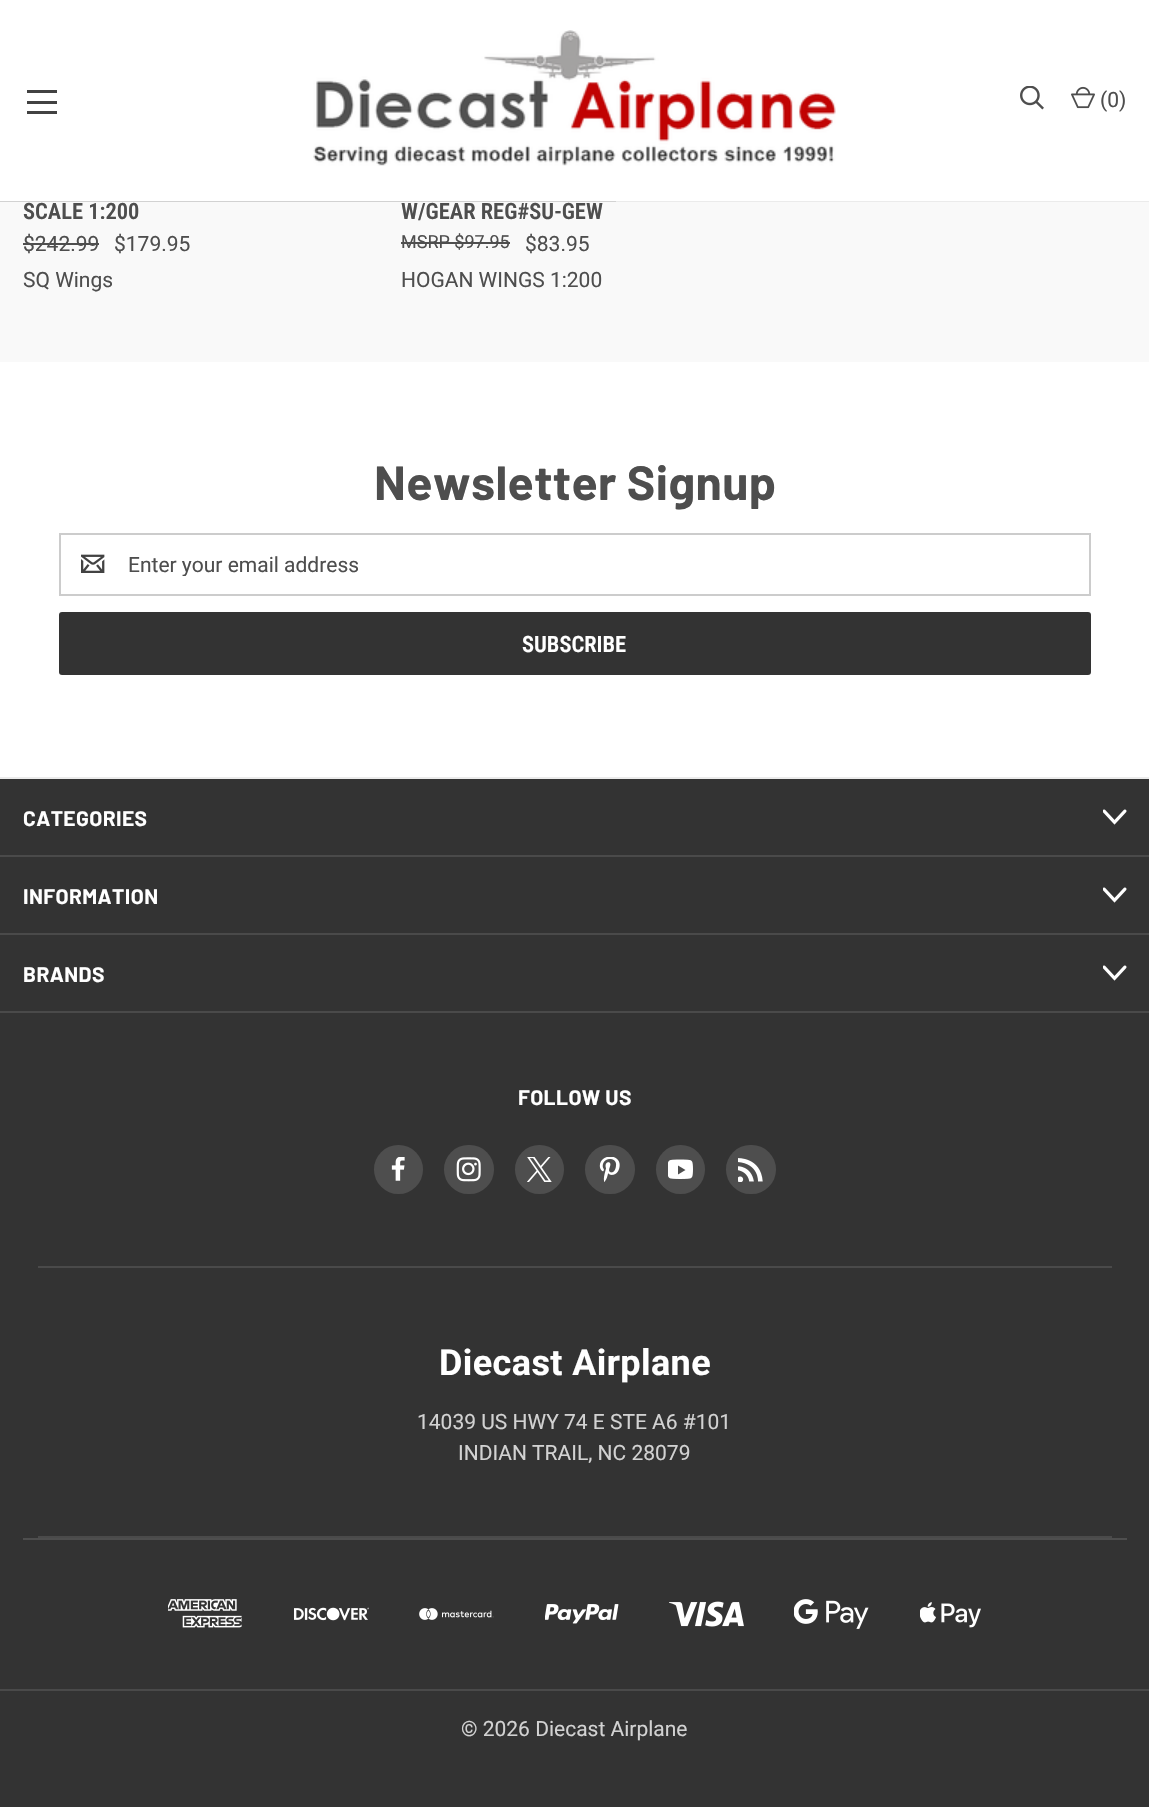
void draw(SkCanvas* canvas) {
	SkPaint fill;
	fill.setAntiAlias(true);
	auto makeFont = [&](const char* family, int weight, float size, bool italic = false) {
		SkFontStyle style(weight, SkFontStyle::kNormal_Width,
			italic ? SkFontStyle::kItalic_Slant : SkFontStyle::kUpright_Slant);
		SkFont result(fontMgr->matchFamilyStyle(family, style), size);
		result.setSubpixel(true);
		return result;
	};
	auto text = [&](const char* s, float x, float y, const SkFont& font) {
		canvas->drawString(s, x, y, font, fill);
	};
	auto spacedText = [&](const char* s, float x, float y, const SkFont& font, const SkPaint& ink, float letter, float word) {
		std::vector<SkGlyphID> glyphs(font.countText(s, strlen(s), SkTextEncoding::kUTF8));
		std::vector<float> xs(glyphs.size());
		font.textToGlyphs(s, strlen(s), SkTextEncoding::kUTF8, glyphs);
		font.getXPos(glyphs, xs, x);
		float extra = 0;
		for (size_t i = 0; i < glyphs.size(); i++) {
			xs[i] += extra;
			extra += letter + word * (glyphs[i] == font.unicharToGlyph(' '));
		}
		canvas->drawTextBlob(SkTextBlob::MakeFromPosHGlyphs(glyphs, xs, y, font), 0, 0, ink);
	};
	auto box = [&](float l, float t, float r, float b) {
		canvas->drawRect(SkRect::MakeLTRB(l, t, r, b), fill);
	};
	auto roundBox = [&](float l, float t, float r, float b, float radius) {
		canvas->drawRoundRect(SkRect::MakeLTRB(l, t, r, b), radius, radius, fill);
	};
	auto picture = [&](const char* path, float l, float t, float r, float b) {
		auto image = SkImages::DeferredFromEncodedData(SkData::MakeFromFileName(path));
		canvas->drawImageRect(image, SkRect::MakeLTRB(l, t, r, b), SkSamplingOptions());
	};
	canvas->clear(0xFFFFFFFF);
	fill.setColor(0xFFEBEBEB);
	box(616, 201, 1149, 202);
	fill.setColor(0xFF424242);
	box(27, 101, 57, 104);
	box(27, 90, 57, 93);
	box(27, 111, 57, 114);
	picture("image0.png", 313, 30, 836, 166);
	picture("image1.png", 1020, 86, 1044, 110);
	picture("image2.png", 1071, 86, 1095, 109);
	fill.setColor(0xFFD2D2D2);
	box(0, 201, 616, 202);
	fill.setColor(0xFFF9F9F9);
	box(0, 202, 1149, 362);
	fill.setColor(0xFF4E4E4E);
	box(23, 243, 99, 245);
	box(401, 242, 510, 244);
	fill.setStyle(SkPaint::kStroke_Style);
	fill.setStrokeWidth(2);
	fill.setColor(0xFFCCCCCC);
	canvas->drawRect(SkRect::MakeLTRB(60, 534, 1090, 595), fill);
	picture("image3.png", 81, 554, 105, 573);
	fill.setStyle(SkPaint::kFill_Style);
	fill.setColor(0xFF333333);
	roundBox(59, 612, 1091, 675, 3);
	box(0, 779, 1149, 1807);
	fill.setColor(0xFFEBEBEB);
	box(0, 777, 1149, 779);
	fill.setColor(0xFF4A4A4A);
	box(0, 855, 1149, 857);
	picture("image4.png", 1103, 809, 1127, 825);
	box(0, 933, 1149, 935);
	picture("image4.png", 1103, 887, 1127, 903);
	box(0, 1011, 1149, 1013);
	picture("image4.png", 1103, 965, 1127, 981);
	box(38, 1266, 1112, 1268);
	fill.setColor(0xFF4E4E4E);
	canvas->drawCircle(398.5f, 1169.5f, 24.5f, fill);
	picture("image5.png", 391, 1157, 405, 1181);
	roundBox(444, 1145, 494, 1194, 24.5f);
	picture("image6.png", 456, 1157, 481, 1182);
	canvas->drawCircle(539.5f, 1169.5f, 24.5f, fill);
	picture("image7.png", 527, 1157, 552, 1182);
	roundBox(585, 1145, 635, 1194, 24.5f);
	picture("image8.png", 599, 1157, 620, 1182);
	canvas->drawCircle(680.5f, 1169.5f, 24.5f, fill);
	picture("image9.png", 668, 1159, 693, 1179);
	roundBox(726, 1145, 776, 1194, 24.5f);
	picture("image10.png", 738, 1158, 763, 1182);
	fill.setColor(0xFF4A4A4A);
	box(38, 1536, 1112, 1538);
	fill.setColor(0xFF4E4E4E);
	box(23, 1538, 1127, 1540);
	fill.setColor(0xFF4A4A4A);
	box(0, 1689, 1149, 1691);
	picture("image11.png", 168, 1599, 242, 1628);
	picture("image12.png", 294, 1607, 369, 1621);
	picture("image13.png", 419, 1608, 494, 1620);
	picture("image14.png", 545, 1604, 619, 1624);
	picture("image15.png", 669, 1601, 744, 1627);
	picture("image16.png", 794, 1599, 869, 1629);
	picture("image17.png", 920, 1602, 981, 1628);
	auto font1 = makeFont("Roboto", 400, 21);
	fill.setColor(0xFF4E4E4E);
	text("(0)", 1100, 107, font1);
	auto font2 = makeFont("Roboto Condensed", 600, 22.5f);
	text("SCALE 1:200", 23, 219, font2);
	text("$242.99", 23, 251, font1);
	text("$179.95", 114, 251, font1);
	text("SQ Wings", 23, 287, font1);
	text("W/GEAR REG#SU-GEW", 401, 219, font2);
	auto font3 = makeFont("Roboto", 400, 18);
	text("MSRP $97.95", 401, 248, font3);
	text("$83.95", 525, 251, font1);
	text("HOGAN WINGS 1:200", 401, 287, font1);
	auto font4 = makeFont("Barlow", 700, 48);
	spacedText("Newsletter Signup", 374, 500, font4, fill, 0.4f, 0);
	canvas->save();
	canvas->clipRect(SkRect::MakeLTRB(128, 552, 1068, 576));
	text("Enter your email address", 128, 572, font1);
	canvas->restore();
	fill.setColor(0xFFFFFFFF);
	text("SUBSCRIBE", 522, 652, font2);
	auto font5 = makeFont("Barlow", 700, 21);
	spacedText("CATEGORIES", 23, 826, font5, fill, 0.4f, 0);
	spacedText("INFORMATION", 23, 904, font5, fill, 0.4f, 0);
	spacedText("BRANDS", 23, 982, font5, fill, 0.4f, 0);
	spacedText("FOLLOW US", 518, 1105, font5, fill, 0.4f, 0);
	auto font6 = makeFont("Roboto", 700, 36);
	spacedText("Diecast Airplane", 439, 1375, font6, fill, 0.4f, 0);
	fill.setColor(0xFFD2D2D2);
	text("14039 US HWY 74 E STE A6 #101", 417, 1429, font1);
	text("INDIAN TRAIL, NC 28079", 458, 1460, font1);
	text("© 2026 Diecast Airplane", 461, 1736, font1);
}
